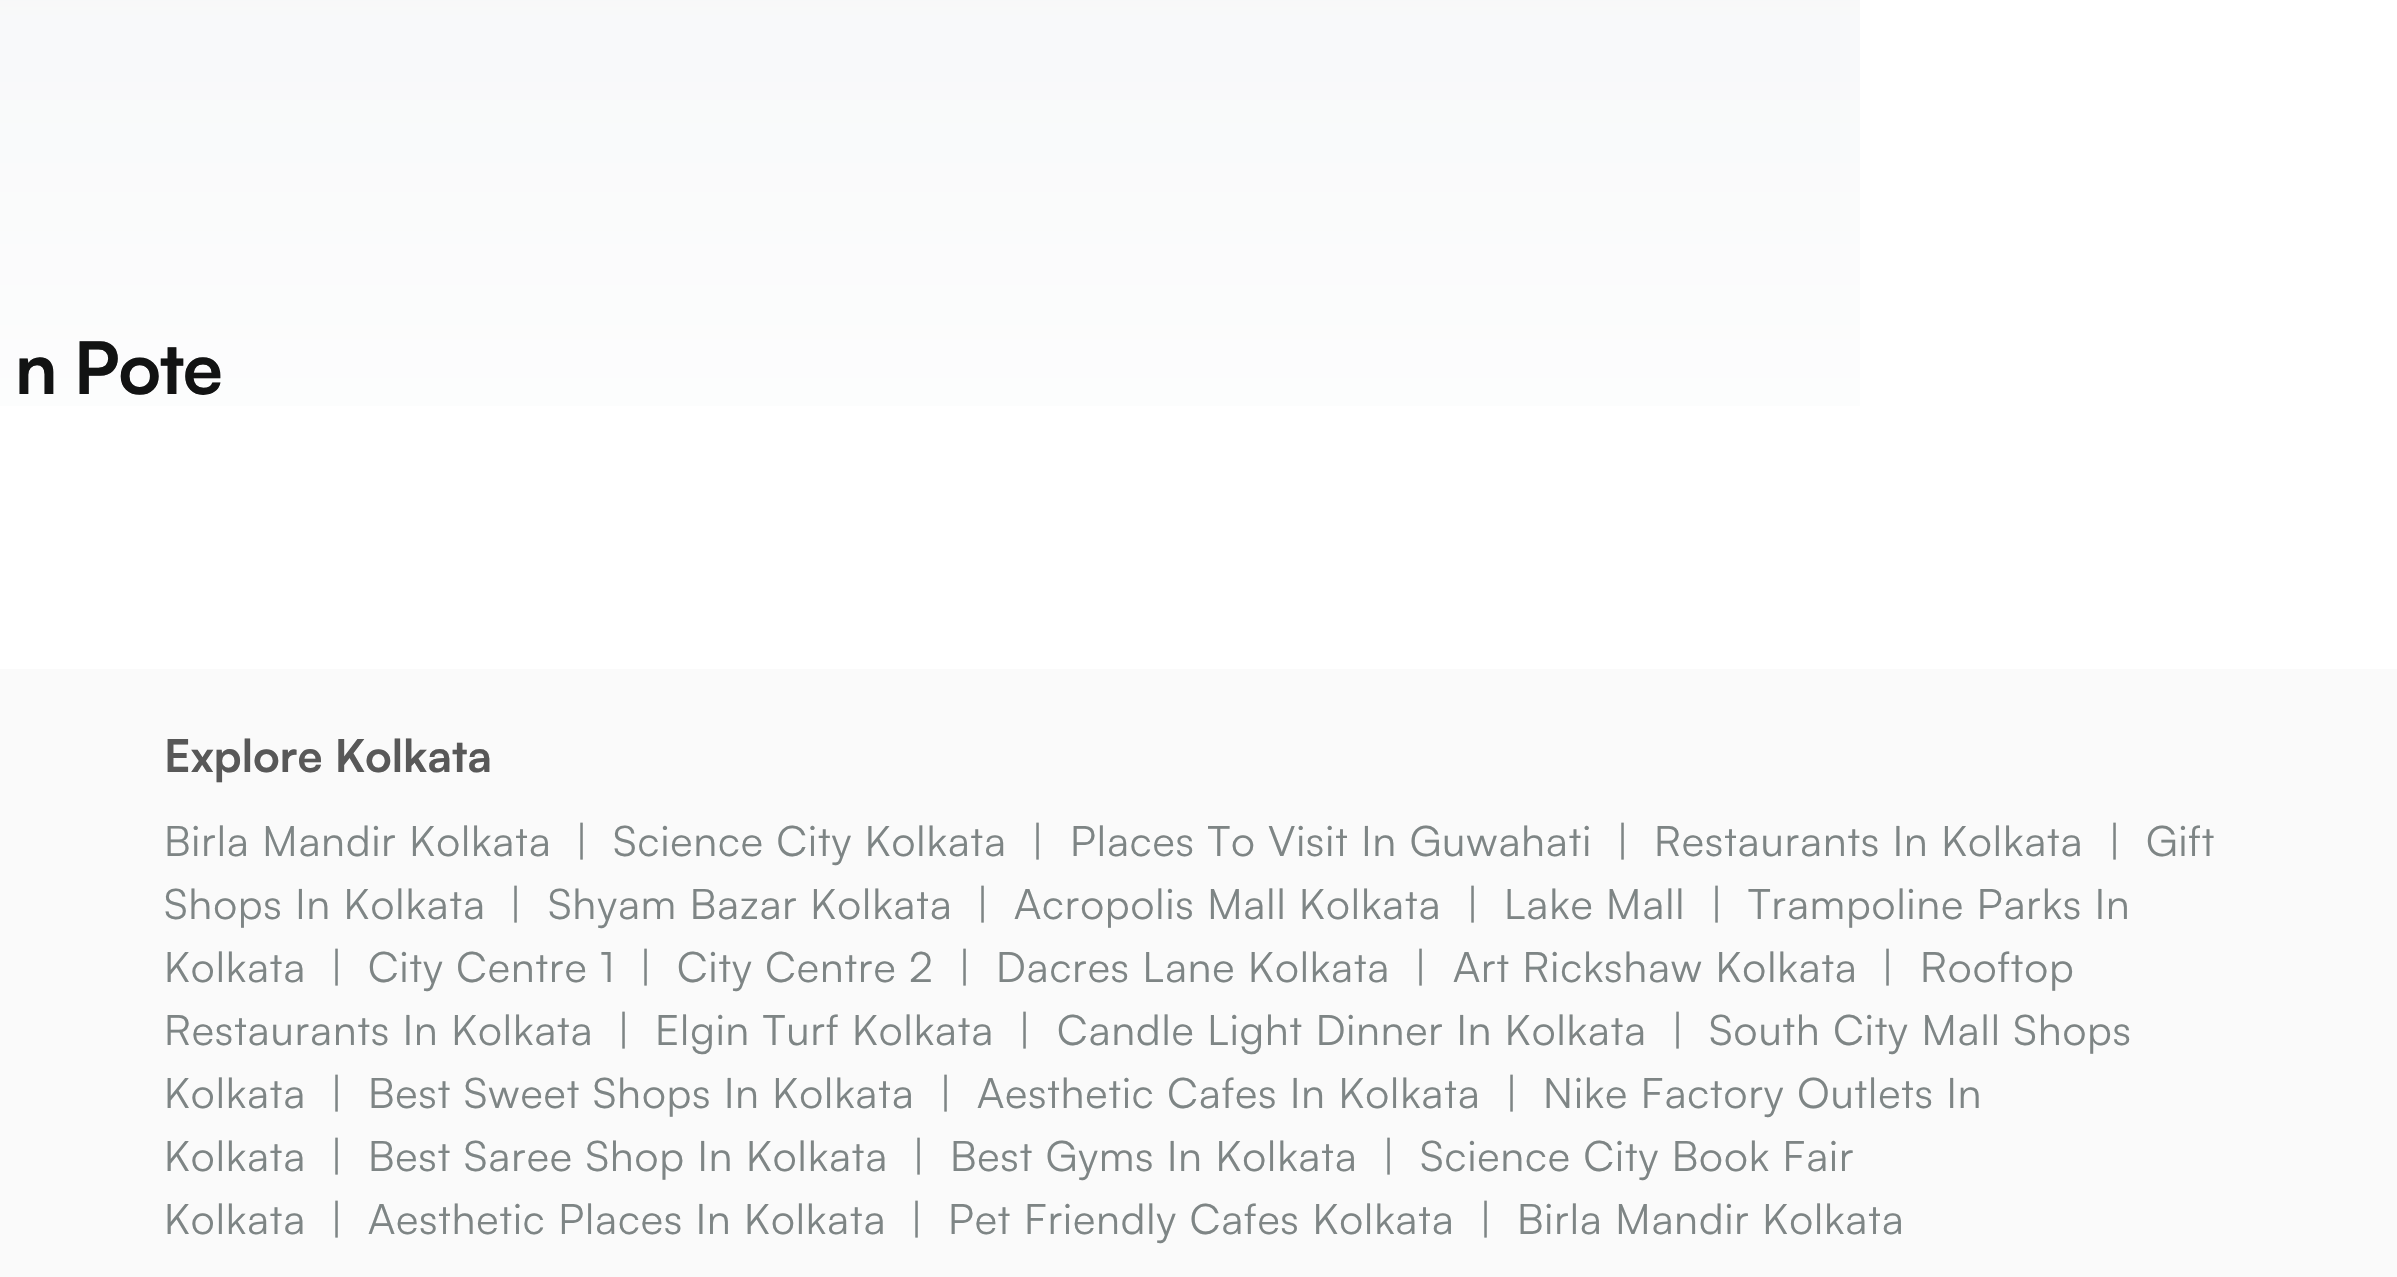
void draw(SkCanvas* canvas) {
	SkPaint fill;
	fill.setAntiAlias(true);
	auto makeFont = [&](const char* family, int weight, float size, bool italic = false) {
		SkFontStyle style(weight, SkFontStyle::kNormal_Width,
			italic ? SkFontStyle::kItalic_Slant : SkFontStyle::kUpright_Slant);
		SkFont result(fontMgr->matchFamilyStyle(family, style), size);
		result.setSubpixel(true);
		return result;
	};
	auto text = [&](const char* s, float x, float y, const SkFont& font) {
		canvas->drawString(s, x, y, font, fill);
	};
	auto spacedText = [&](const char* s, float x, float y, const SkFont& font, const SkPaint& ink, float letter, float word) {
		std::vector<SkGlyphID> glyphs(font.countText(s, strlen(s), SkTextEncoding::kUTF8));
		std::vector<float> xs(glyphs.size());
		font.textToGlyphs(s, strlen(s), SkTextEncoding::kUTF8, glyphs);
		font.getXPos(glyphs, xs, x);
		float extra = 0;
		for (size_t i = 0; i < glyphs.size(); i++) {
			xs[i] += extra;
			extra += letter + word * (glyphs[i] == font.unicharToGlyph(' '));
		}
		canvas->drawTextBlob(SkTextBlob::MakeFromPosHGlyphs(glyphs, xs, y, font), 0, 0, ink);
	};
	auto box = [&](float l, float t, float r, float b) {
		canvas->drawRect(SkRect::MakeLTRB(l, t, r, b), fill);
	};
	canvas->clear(0xFFFFFFFF);
	{
		const SkColor colors[] = {0xFFF7F8F9, 0xFFFFFFFF};
		const float stops[] = {0, 1};
		const SkPoint ends[] = {{660, -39}, {660, 609}};
		fill.setShader(SkGradientShader::MakeLinear(ends, colors, stops, 2, SkTileMode::kClamp));
		fill.setAlpha(255);
	}
	box(0, 0, 1860, 406);
	fill.setShader(nullptr);
	fill.setColor(0xFFFAFAFA);
	box(0, 669, 2397, 1277);
	auto font1 = makeFont("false", 700, 72);
	fill.setColor(0xFF121313);
	spacedText("n Pote", 15, 394, font1, fill, -1.5f, 0);
	auto font2 = makeFont("false", 700, 45);
	fill.setColor(0xFF585858);
	text("Explore Kolkata", 164, 772, font2);
	auto font3 = makeFont("false", 400, 42);
	fill.setColor(0xFF7E8585);
	spacedText("Birla Mandir Kolkata", 164, 856, font3, fill, 0.95f, 0);
	spacedText("|", 575, 856, font3, fill, 0.95f, 0);
	spacedText("Science City Kolkata", 613, 856, font3, fill, 0.95f, 0);
	spacedText("|", 1031, 856, font3, fill, 0.95f, 0);
	spacedText("Places To Visit In Guwahati", 1070, 856, font3, fill, 0.95f, 0);
	spacedText("|", 1616, 856, font3, fill, 0.95f, 0);
	spacedText("Restaurants In Kolkata", 1654, 856, font3, fill, 0.95f, 0);
	spacedText("|", 2108, 856, font3, fill, 0.95f, 0);
	spacedText("Gift", 2146, 856, font3, fill, 0.95f, 0);
	spacedText("Shops In Kolkata", 164, 919, font3, fill, 0.95f, 0);
	spacedText("|", 509, 919, font3, fill, 0.95f, 0);
	spacedText("Shyam Bazar Kolkata", 548, 919, font3, fill, 0.95f, 0);
	spacedText("|", 976, 919, font3, fill, 0.95f, 0);
	spacedText("Acropolis Mall Kolkata", 1014, 919, font3, fill, 0.95f, 0);
	spacedText("|", 1466, 919, font3, fill, 0.95f, 0);
	spacedText("Lake Mall", 1504, 919, font3, fill, 0.95f, 0);
	spacedText("|", 1710, 919, font3, fill, 0.95f, 0);
	spacedText("Trampoline Parks In", 1748, 919, font3, fill, 0.95f, 0);
	spacedText("Kolkata", 164, 982, font3, fill, 0.95f, 0);
	spacedText("|", 330, 982, font3, fill, 0.95f, 0);
	spacedText("City Centre 1", 368, 982, font3, fill, 0.95f, 0);
	spacedText("|", 639, 982, font3, fill, 0.95f, 0);
	spacedText("City Centre 2", 677, 982, font3, fill, 0.95f, 0);
	spacedText("|", 958, 982, font3, fill, 0.95f, 0);
	spacedText("Dacres Lane Kolkata", 996, 982, font3, fill, 0.95f, 0);
	spacedText("|", 1414, 982, font3, fill, 0.95f, 0);
	spacedText("Art Rickshaw Kolkata", 1453, 982, font3, fill, 0.95f, 0);
	spacedText("|", 1881, 982, font3, fill, 0.95f, 0);
	spacedText("Rooftop", 1920, 982, font3, fill, 0.95f, 0);
	spacedText("Restaurants In Kolkata", 164, 1045, font3, fill, 0.95f, 0);
	spacedText("|", 617, 1045, font3, fill, 0.95f, 0);
	spacedText("Elgin Turf Kolkata", 655, 1045, font3, fill, 0.95f, 0);
	spacedText("|", 1018, 1045, font3, fill, 0.95f, 0);
	spacedText("Candle Light Dinner In Kolkata", 1057, 1045, font3, fill, 0.95f, 0);
	spacedText("|", 1671, 1045, font3, fill, 0.95f, 0);
	spacedText("South City Mall Shops", 1709, 1045, font3, fill, 0.95f, 0);
	spacedText("Kolkata", 164, 1108, font3, fill, 0.95f, 0);
	spacedText("|", 330, 1108, font3, fill, 0.95f, 0);
	spacedText("Best Sweet Shops In Kolkata", 368, 1108, font3, fill, 0.95f, 0);
	spacedText("|", 939, 1108, font3, fill, 0.95f, 0);
	spacedText("Aesthetic Cafes In Kolkata", 977, 1108, font3, fill, 0.95f, 0);
	spacedText("|", 1505, 1108, font3, fill, 0.95f, 0);
	spacedText("Nike Factory Outlets In", 1543, 1108, font3, fill, 0.95f, 0);
	spacedText("Kolkata", 164, 1171, font3, fill, 0.95f, 0);
	spacedText("|", 330, 1171, font3, fill, 0.95f, 0);
	spacedText("Best Saree Shop In Kolkata", 368, 1171, font3, fill, 0.95f, 0);
	spacedText("|", 912, 1171, font3, fill, 0.95f, 0);
	spacedText("Best Gyms In Kolkata", 950, 1171, font3, fill, 0.95f, 0);
	spacedText("|", 1382, 1171, font3, fill, 0.95f, 0);
	spacedText("Science City Book Fair", 1420, 1171, font3, fill, 0.95f, 0);
	spacedText("Kolkata", 164, 1234, font3, fill, 0.95f, 0);
	spacedText("|", 330, 1234, font3, fill, 0.95f, 0);
	spacedText("Aesthetic Places In Kolkata", 368, 1234, font3, fill, 0.95f, 0);
	spacedText("|", 910, 1234, font3, fill, 0.95f, 0);
	spacedText("Pet Friendly Cafes Kolkata", 948, 1234, font3, fill, 0.95f, 0);
	spacedText("|", 1479, 1234, font3, fill, 0.95f, 0);
	spacedText("Birla Mandir Kolkata", 1517, 1234, font3, fill, 0.95f, 0);
}
